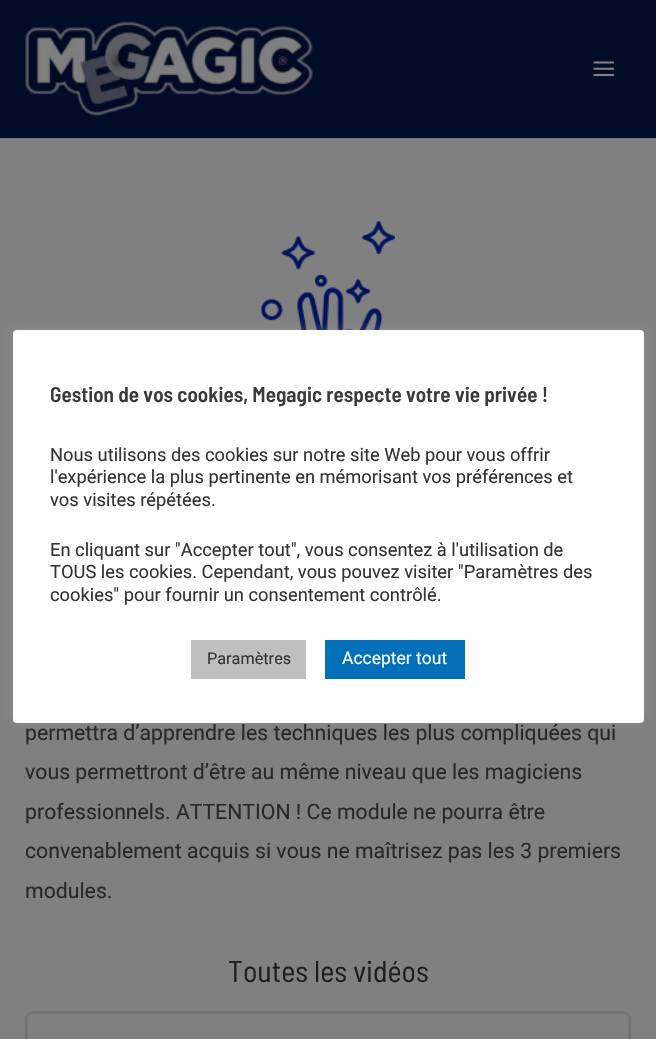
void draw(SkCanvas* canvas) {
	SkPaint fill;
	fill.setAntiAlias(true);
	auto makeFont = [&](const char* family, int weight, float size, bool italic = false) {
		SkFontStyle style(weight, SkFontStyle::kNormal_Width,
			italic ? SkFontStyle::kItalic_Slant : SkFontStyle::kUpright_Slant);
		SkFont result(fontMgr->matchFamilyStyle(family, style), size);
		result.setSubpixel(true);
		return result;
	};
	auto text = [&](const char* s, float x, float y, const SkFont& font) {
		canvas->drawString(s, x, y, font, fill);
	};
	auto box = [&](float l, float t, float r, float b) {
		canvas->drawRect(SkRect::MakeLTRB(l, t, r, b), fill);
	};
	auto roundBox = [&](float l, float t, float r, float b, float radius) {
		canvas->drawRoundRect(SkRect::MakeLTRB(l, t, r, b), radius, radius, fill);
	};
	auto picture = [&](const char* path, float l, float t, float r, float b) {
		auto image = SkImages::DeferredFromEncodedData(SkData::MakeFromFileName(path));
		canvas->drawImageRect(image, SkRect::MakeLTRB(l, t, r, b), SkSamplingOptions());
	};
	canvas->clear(0xFF808080);
	picture("image2.png", 261, 221, 395, 330);
	fill.setColor(0x4DACABAB);
	fill.setMaskFilter(SkMaskFilter::MakeBlur(kNormal_SkBlurStyle, 6));
	canvas->drawRoundRect(SkRect::MakeLTRB(13, 329, 644, 721), 4, 4, fill);
	fill.setMaskFilter(nullptr);
	fill.setColor(0xFFFFFFFF);
	roundBox(13, 330, 644, 723, 4);
	fill.setColor(0xFFBFBFBF);
	box(191, 640, 306, 679);
	fill.setColor(0xFF0170B9);
	box(325, 640, 465, 679);
	fill.setColor(0xFF010C26);
	box(0, 0, 656, 138);
	fill.setColor(0xFF757575);
	box(0, 138, 656, 139);
	picture("image0.png", 25, 21, 313, 117);
	picture("image1.png", 593, 61, 615, 77);
	fill.setStyle(SkPaint::kStroke_Style);
	fill.setStrokeWidth(3);
	fill.setColor(0xFF717477);
	canvas->drawRoundRect(SkRect::MakeLTRB(26.5f, 1012.5f, 629.5f, 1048.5f), 6.5f, 6.5f, fill);
	auto font1 = makeFont("Barlow Semi Condensed", 600, 21.25f);
	fill.setStyle(SkPaint::kFill_Style);
	fill.setColor(0xFF3A3A3A);
	text("Gestion de vos cookies, Megagic respecte votre vie privée !", 50, 402, font1);
	auto font2 = makeFont("Roboto", 400, 18.3f);
	fill.setColor(0xFF333333);
	text("Nous utilisons des cookies sur notre site Web pour vous offrir", 50, 461, font2);
	text("l'expérience la plus pertinente en mémorisant vos préférences et", 50, 483, font2);
	text("vos visites répétées.", 50, 506, font2);
	text("En cliquant sur \"Accepter tout\", vous consentez à l'utilisation de", 50, 556, font2);
	text("TOUS les cookies. Cependant, vous pouvez visiter \"Paramètres des", 50, 578, font2);
	text("cookies\" pour fournir un consentement contrôlé.", 50, 601, font2);
	auto font3 = makeFont("Roboto", 400, 16.25f);
	text("Paramètres", 207, 664, font3);
	auto font4 = makeFont("Roboto", 400, 17.5f);
	fill.setColor(0xFFFFFFFF);
	text("Accepter tout", 342, 664, font4);
	auto font5 = makeFont("Roboto", 400, 21.25f);
	fill.setColor(0xFF26282C);
	text("permettra d’apprendre les techniques les plus compliquées qui", 25, 740, font5);
	text("vous permettront d’être au même niveau que les magiciens", 25, 779, font5);
	text("professionnels. ATTENTION ! Ce module ne pourra être", 25, 819, font5);
	text("convenablement acquis si vous ne maîtrisez pas les 3 premiers", 25, 858, font5);
	text("modules.", 25, 898, font5);
	auto font6 = makeFont("Barlow Semi Condensed", 400, 30);
	fill.setColor(0xFF1D1D1D);
	text("Toutes les vidéos", 228, 982, font6);
}
